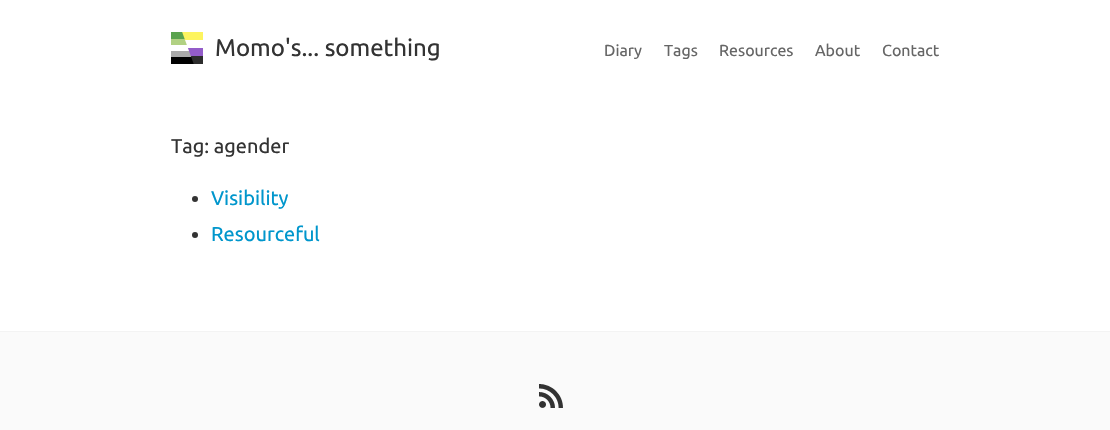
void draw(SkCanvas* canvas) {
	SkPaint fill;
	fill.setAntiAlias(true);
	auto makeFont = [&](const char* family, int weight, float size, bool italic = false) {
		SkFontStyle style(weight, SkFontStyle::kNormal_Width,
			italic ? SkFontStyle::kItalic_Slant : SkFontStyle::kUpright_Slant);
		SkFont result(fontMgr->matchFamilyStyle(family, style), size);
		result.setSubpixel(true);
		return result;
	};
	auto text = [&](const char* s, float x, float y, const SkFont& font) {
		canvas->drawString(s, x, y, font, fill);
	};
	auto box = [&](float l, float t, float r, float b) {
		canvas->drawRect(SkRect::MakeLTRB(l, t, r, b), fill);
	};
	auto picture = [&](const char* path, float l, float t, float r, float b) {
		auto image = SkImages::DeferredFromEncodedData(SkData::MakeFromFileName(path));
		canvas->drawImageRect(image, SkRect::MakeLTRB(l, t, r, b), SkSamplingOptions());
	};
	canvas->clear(0xFFFFFFFF);
	picture("image0.png", 171, 32, 203, 64);
	fill.setColor(0xFF333333);
	canvas->drawCircle(195, 199, 3, fill);
	canvas->drawCircle(195, 235, 3, fill);
	fill.setColor(0xFFFAFAFA);
	box(0, 332, 1110, 430);
	fill.setColor(0xFFF3F3F3);
	box(0, 331, 1110, 332);
	picture("image1.png", 539, 384, 563, 408);
	auto font1 = makeFont("Ubuntu", 400, 24);
	fill.setColor(0xFF333333);
	text("Momo's... something", 215, 56, font1);
	auto font2 = makeFont("Ubuntu", 400, 16);
	fill.setColor(0xFF666666);
	text("Diary", 604, 56, font2);
	text("Tags", 664, 56, font2);
	text("Resources", 719, 56, font2);
	text("About", 815, 56, font2);
	text("Contact", 882, 56, font2);
	auto font3 = makeFont("Ubuntu", 400, 20);
	fill.setColor(0xFF333333);
	text("Tag: agender", 171, 153, font3);
	fill.setColor(0xFF0096CC);
	text("Visibility", 211, 205, font3);
	text("Resourceful", 211, 241, font3);
}
